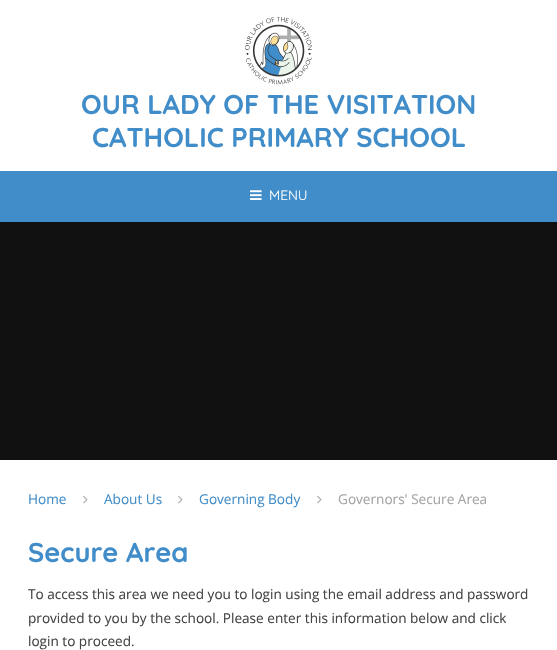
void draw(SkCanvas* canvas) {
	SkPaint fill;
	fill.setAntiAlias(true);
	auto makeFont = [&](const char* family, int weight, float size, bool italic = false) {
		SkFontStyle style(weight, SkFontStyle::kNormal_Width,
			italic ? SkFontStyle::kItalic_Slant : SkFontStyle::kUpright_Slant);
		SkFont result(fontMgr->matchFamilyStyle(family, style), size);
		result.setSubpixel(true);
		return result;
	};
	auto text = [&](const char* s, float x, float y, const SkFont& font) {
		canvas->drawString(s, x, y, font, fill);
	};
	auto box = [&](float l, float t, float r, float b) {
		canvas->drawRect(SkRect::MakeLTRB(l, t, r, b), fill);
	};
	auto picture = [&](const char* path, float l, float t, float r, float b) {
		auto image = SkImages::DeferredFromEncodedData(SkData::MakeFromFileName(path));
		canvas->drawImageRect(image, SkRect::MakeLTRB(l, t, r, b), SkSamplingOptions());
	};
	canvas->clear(0xFF111111);
	fill.setColor(0xFFFFFFFF);
	box(0, 0, 557, 171);
	picture("image0.png", 245, 17, 312, 85);
	fill.setColor(0xFF418DC9);
	box(0, 171, 557, 222);
	picture("image1.png", 250, 190, 262, 200);
	fill.setColor(0xFFFFFFFF);
	box(0, 460, 557, 650);
	picture("image2.png", 83, 495, 88, 504);
	picture("image2.png", 178, 495, 183, 504);
	picture("image2.png", 317, 495, 322, 504);
	auto font1 = makeFont("Quicksand", 700, 27.25f);
	fill.setColor(0xFF418DC9);
	text("OUR LADY OF THE VISITATION", 81, 114, font1);
	text("CATHOLIC PRIMARY SCHOOL", 92, 147, font1);
	auto font2 = makeFont("Quicksand", 400, 13.6f);
	fill.setColor(0xFFFFFFFF);
	text("MENU", 269, 200, font2);
	auto font3 = makeFont("Open Sans", 400, 13.6f);
	fill.setColor(0xFF418DC9);
	text("Home", 28, 504, font3);
	text("About Us", 104, 504, font3);
	text("Governing Body", 199, 504, font3);
	fill.setColor(0xFFA4A4A4);
	text("Governors' Secure Area", 338, 504, font3);
	fill.setColor(0xFF418DC9);
	text("Secure Area", 28, 562, font1);
	fill.setColor(0xFF444444);
	text("To access this area we need you to login using the email address and password", 28, 599, font3);
	text("provided to you by the school. Please enter this information below and click", 28, 623, font3);
	text("login to proceed.", 28, 646, font3);
}
